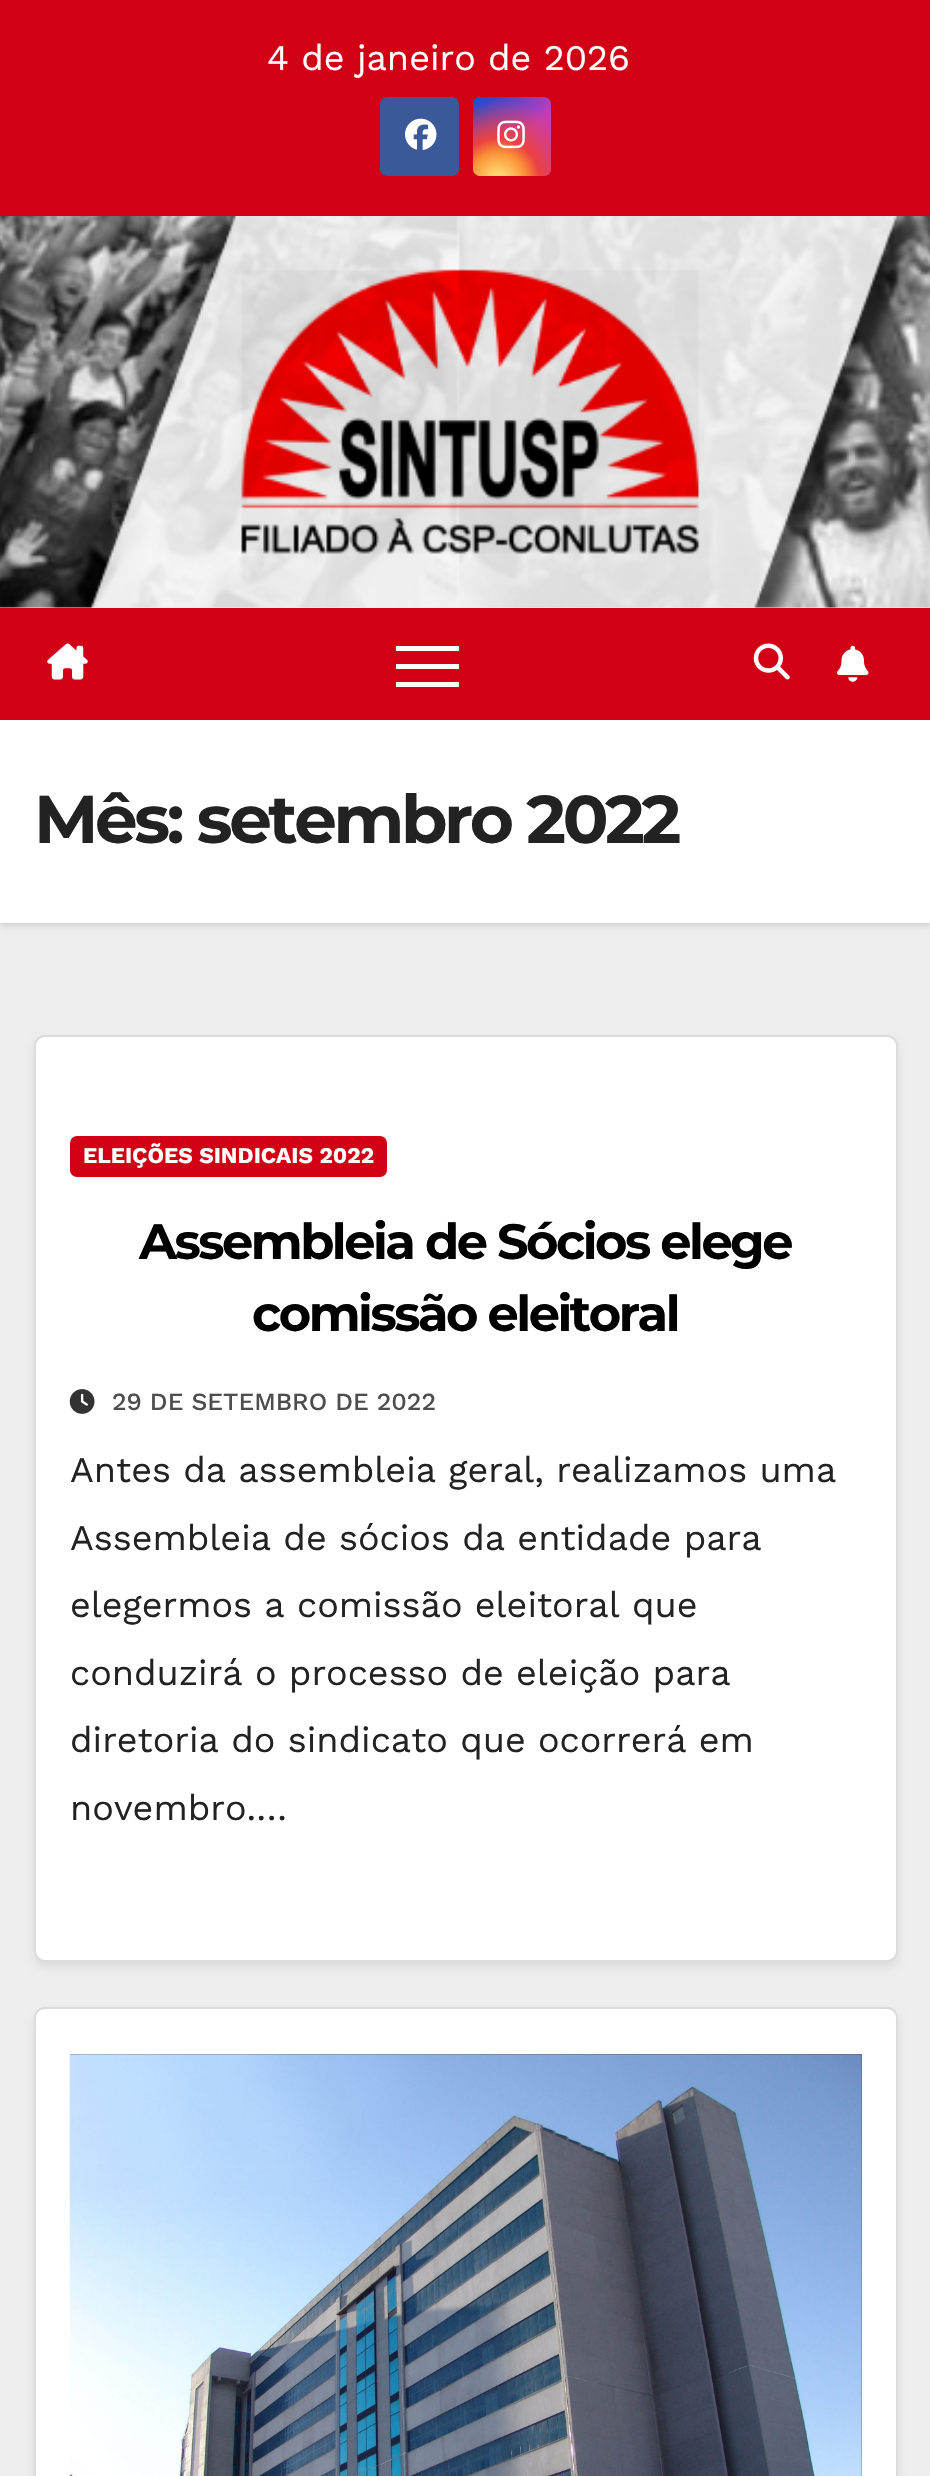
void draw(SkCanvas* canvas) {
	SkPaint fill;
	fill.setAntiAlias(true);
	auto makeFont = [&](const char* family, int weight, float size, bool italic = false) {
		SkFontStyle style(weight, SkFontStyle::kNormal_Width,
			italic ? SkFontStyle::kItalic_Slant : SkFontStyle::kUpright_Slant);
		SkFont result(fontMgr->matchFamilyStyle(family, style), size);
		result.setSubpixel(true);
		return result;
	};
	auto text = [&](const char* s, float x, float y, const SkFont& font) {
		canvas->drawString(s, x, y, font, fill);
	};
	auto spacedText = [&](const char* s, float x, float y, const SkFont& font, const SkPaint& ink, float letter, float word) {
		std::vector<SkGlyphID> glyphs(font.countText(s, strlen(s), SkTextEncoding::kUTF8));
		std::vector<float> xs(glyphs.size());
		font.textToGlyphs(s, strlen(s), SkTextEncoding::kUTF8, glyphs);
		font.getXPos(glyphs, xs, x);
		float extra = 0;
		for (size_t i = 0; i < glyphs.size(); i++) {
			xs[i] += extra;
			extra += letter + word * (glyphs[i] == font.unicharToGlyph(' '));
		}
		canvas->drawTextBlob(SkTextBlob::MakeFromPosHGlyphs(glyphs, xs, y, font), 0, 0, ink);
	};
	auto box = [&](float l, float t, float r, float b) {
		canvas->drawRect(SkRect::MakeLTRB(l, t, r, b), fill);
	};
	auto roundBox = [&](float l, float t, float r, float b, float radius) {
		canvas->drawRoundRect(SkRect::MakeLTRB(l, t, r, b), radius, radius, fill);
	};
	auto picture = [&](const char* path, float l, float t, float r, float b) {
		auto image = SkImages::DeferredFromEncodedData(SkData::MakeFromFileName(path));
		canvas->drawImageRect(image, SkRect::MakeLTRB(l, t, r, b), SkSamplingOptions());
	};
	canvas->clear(0xFFEEEEEE);
	fill.setColor(0xFFD10014);
	box(0, 0, 930, 216);
	fill.setColor(0xFF3B5998);
	roundBox(380, 97, 459, 176, 7);
	picture("image0.png", 405, 118, 437, 150);
	{
		const SkColor colors[] = {0xFF234BD7, 0xFFC33CBE};
		const float stops[] = {0.12f, 0.58f};
		const SkPoint ends[] = {{473, 97}, {551, 176}};
		fill.setShader(SkGradientShader::MakeLinear(ends, colors, stops, 2, SkTileMode::kClamp));
		fill.setAlpha(255);
	}
	roundBox(473, 97, 551, 176, 7);
	{
		const SkColor colors[] = {0xFFFFE17D, 0xFFFFCD69, 0xFFFA9137, 0xFFEB4141, 0x00EB4141};
		const float stops[] = {0, 0.1f, 0.28f, 0.42f, 0.82f};
		fill.setShader(SkGradientShader::MakeRadial({498, 180}, 99, colors, stops, 5, SkTileMode::kClamp));
		fill.setAlpha(255);
	}
	roundBox(473, 97, 551, 176, 7);
	picture("image1.png", 497, 120, 525, 149);
	picture("image2.png", 0, 216, 930, 608);
	fill.setShader(nullptr);
	fill.setColor(0x26000000);
	fill.setMaskFilter(SkMaskFilter::MakeBlur(kNormal_SkBlurStyle, 3.5f));
	canvas->drawRect(SkRect::MakeLTRB(0, 722, 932, 925), fill);
	fill.setMaskFilter(nullptr);
	fill.setColor(0xFFD10014);
	box(0, 608, 930, 720);
	picture("image3.png", 47, 643, 88, 680);
	fill.setColor(0xFFFFFFFF);
	box(396, 646, 459, 651);
	box(396, 664, 459, 669);
	box(396, 682, 459, 687);
	picture("image4.png", 753, 643, 790, 680);
	picture("image5.png", 837, 645, 869, 682);
	box(0, 720, 930, 923);
	fill.setColor(0x14000000);
	fill.setMaskFilter(SkMaskFilter::MakeBlur(kNormal_SkBlurStyle, 4.5f));
	canvas->drawRoundRect(SkRect::MakeLTRB(34, 1040, 898, 1967), 11, 11, fill);
	fill.setMaskFilter(nullptr);
	fill.setColor(0xFFFFFFFF);
	canvas->drawRoundRect(SkRect::MakeLTRB(35, 1036, 897, 1961), 10, 10, fill);
	fill.setStyle(SkPaint::kStroke_Style);
	fill.setStrokeWidth(2);
	fill.setColor(0xFFDDDCDC);
	canvas->drawRoundRect(SkRect::MakeLTRB(35, 1036, 897, 1961), 10, 10, fill);
	fill.setStyle(SkPaint::kFill_Style);
	fill.setColor(0xFFD10014);
	roundBox(70, 1136, 387, 1177, 7);
	picture("image6.png", 69, 1389, 95, 1414);
	fill.setColor(0x14000000);
	fill.setMaskFilter(SkMaskFilter::MakeBlur(kNormal_SkBlurStyle, 4.5f));
	canvas->drawRoundRect(SkRect::MakeLTRB(34, 2012, 898, 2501), 11, 11, fill);
	fill.setMaskFilter(nullptr);
	fill.setColor(0xFFFFFFFF);
	canvas->drawRoundRect(SkRect::MakeLTRB(35, 2008, 897, 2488), 10, 10, fill);
	fill.setStyle(SkPaint::kStroke_Style);
	fill.setColor(0xFFDDDCDC);
	canvas->drawRoundRect(SkRect::MakeLTRB(35, 2008, 897, 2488), 10, 10, fill);
	fill.setStyle(SkPaint::kFill_Style);
	fill.setColor(0xFF333333);
	box(70, 2054, 862, 2476);
	picture("image7.png", 69, 2054, 862, 2476);
	auto font1 = makeFont("Work Sans", 400, 36);
	fill.setColor(0xFFFFFFFF);
	text("4 de janeiro de 2026", 267, 70, font1);
	auto font2 = makeFont("Montserrat", 700, 67.5f);
	fill.setColor(0xFF222222);
	spacedText("Mês: setembro 2022", 34, 843, font2, fill, -3.4f, 0);
	auto font3 = makeFont("Work Sans", 700, 22.5f);
	fill.setColor(0xFFFFFFFF);
	text("ELEIÇÕES SINDICAIS 2022", 83, 1163, font3);
	auto font4 = makeFont("Montserrat", 700, 49.5f);
	fill.setColor(0xFF000000);
	spacedText("Assembleia de Sócios elege", 139, 1259, font4, fill, -2.5f, 0);
	spacedText("comissão eleitoral", 252, 1331, font4, fill, -2.5f, 0);
	auto font5 = makeFont("Work Sans", 500, 24.75f);
	fill.setColor(0xFF4D4D4D);
	text("29 DE SETEMBRO DE 2022", 112, 1410, font5);
	fill.setColor(0xFF222222);
	text("Antes da assembleia geral, realizamos uma", 70, 1482, font1);
	text("Assembleia de sócios da entidade para", 70, 1550, font1);
	text("elegermos a comissão eleitoral que", 70, 1617, font1);
	text("conduzirá o processo de eleição para", 70, 1685, font1);
	text("diretoria do sindicato que ocorrerá em", 70, 1752, font1);
	text("novembro.…", 70, 1820, font1);
}
